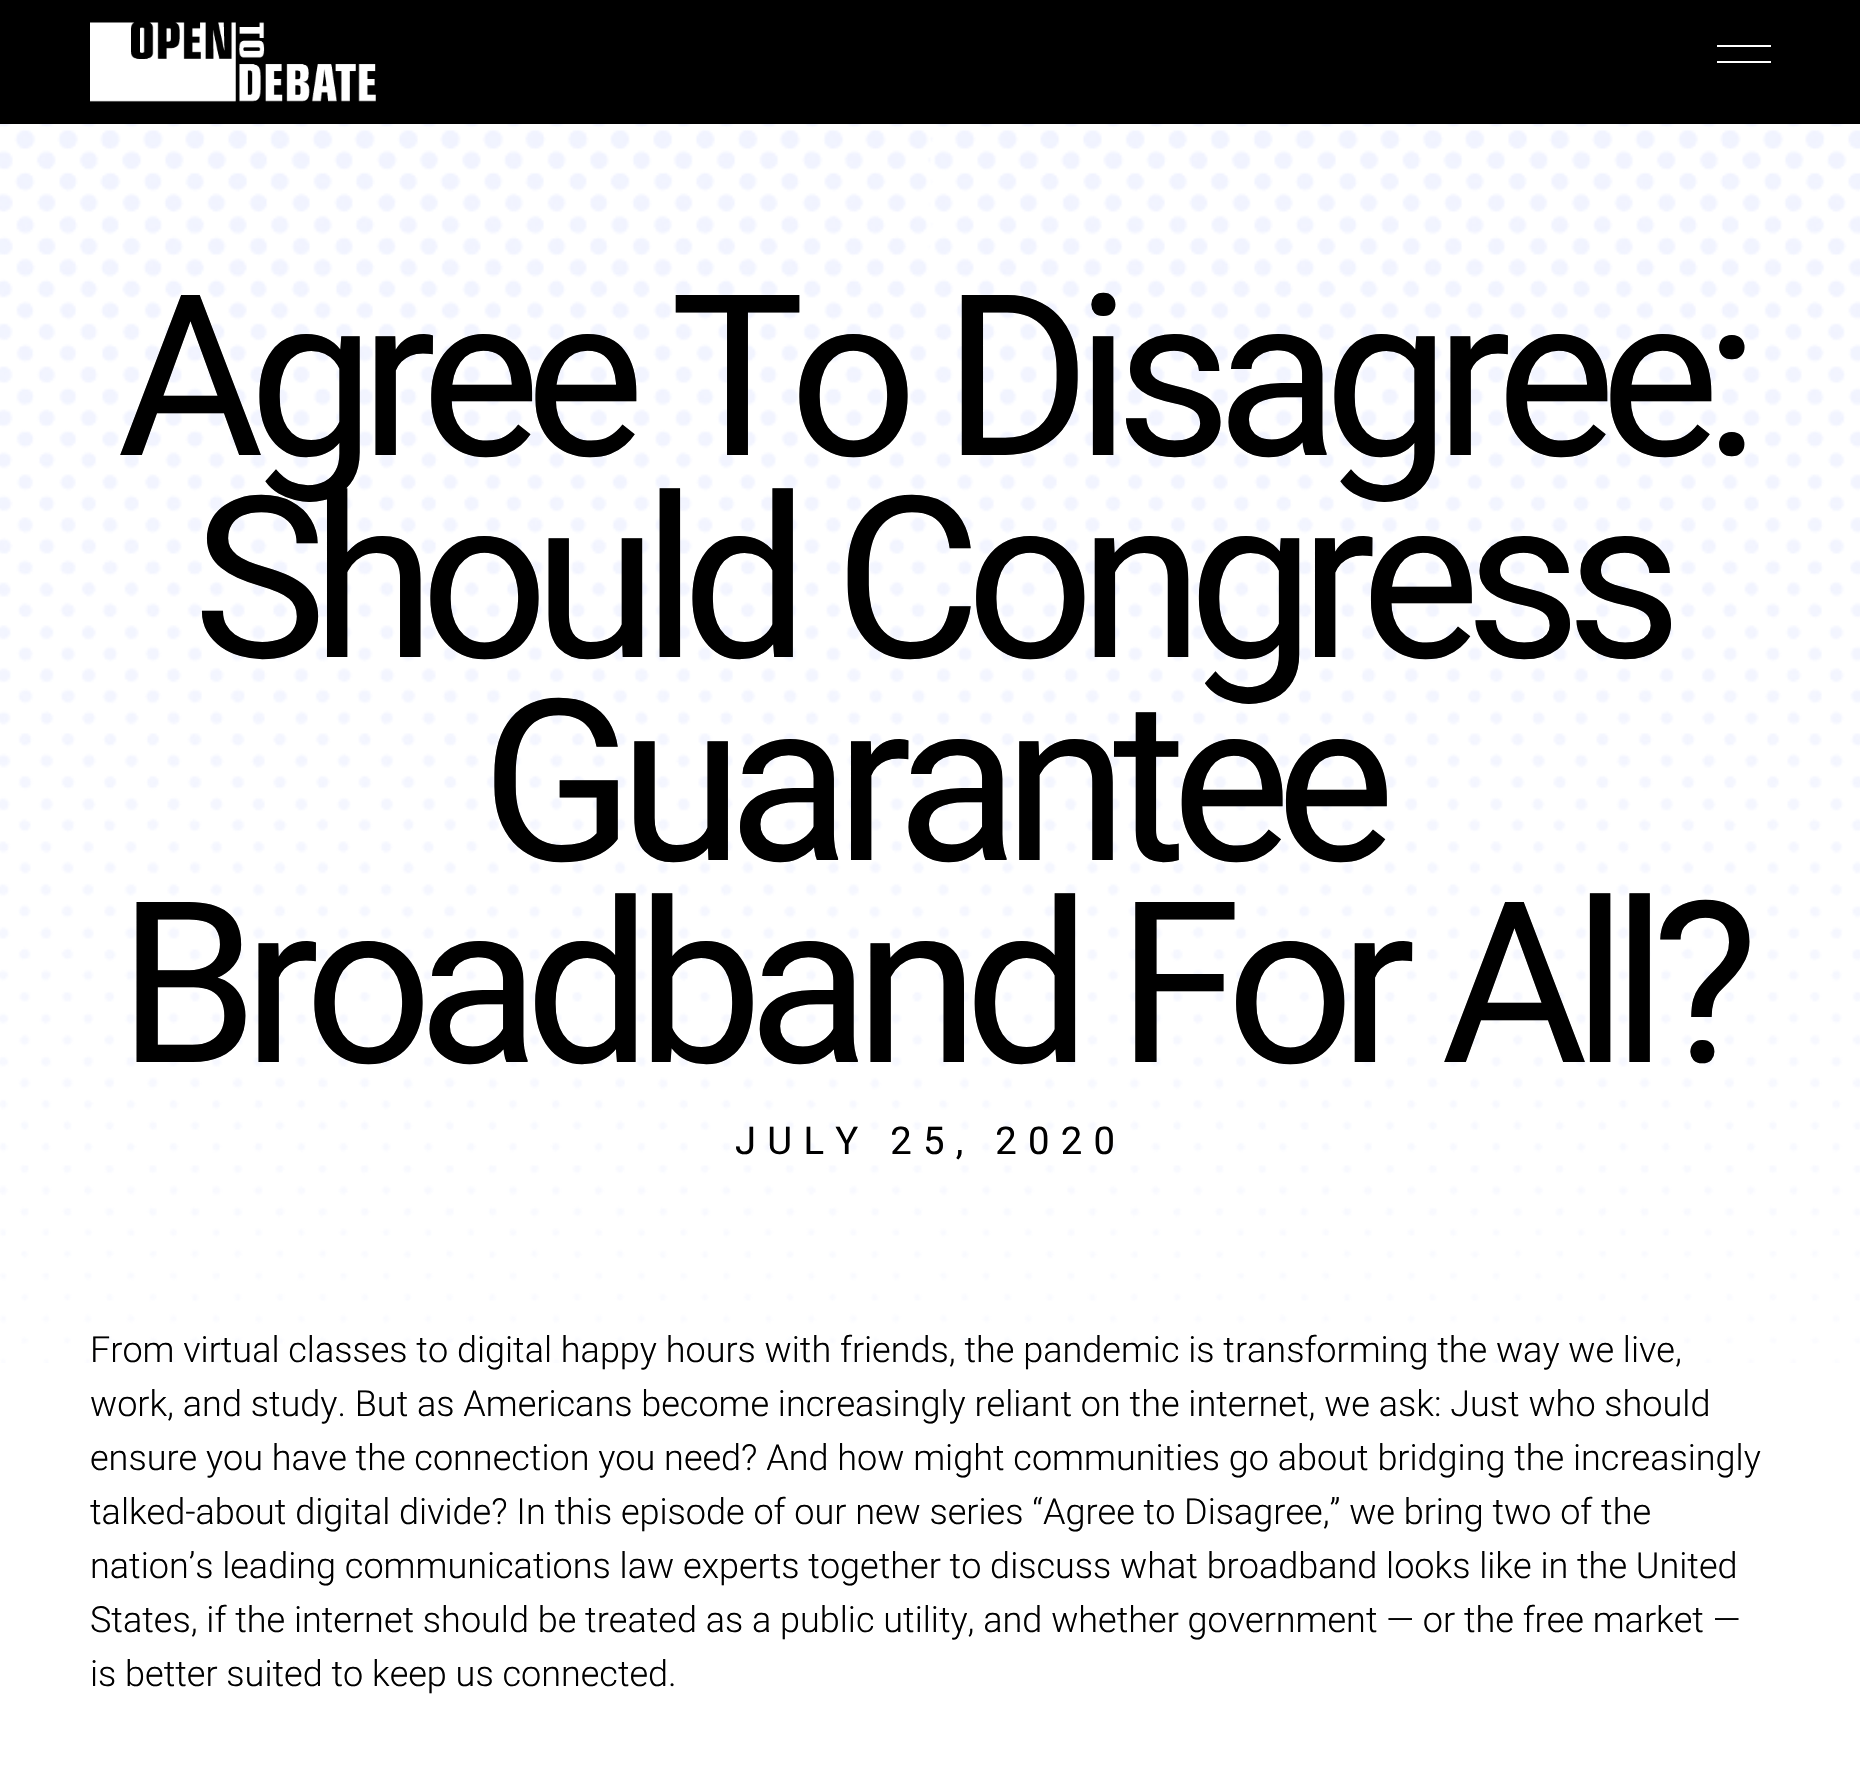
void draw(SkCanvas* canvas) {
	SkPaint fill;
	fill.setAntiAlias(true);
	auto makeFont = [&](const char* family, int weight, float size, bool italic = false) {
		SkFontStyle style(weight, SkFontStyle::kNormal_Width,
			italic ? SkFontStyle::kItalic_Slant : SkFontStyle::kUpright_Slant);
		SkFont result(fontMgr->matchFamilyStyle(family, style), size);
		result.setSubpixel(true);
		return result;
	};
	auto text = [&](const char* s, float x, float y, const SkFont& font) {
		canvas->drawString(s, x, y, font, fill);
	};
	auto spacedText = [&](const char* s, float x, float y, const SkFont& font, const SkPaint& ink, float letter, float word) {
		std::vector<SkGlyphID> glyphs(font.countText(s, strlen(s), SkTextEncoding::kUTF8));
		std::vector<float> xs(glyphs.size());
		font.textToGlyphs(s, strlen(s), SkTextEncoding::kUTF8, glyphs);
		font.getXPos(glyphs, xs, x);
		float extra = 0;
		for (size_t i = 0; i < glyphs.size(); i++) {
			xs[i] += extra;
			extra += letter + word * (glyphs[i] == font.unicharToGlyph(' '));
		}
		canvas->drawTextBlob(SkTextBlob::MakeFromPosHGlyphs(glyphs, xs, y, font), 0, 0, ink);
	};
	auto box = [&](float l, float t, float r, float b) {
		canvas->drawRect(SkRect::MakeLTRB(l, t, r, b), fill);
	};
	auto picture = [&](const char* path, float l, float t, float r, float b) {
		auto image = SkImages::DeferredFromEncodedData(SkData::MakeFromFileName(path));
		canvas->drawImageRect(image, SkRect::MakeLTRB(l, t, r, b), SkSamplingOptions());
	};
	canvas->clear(0xFFFFFFFF);
	picture("image0.png", 0, 124, 1860, 1363);
	fill.setColor(0xFF000000);
	box(0, 0, 1860, 124);
	picture("image1.png", 90, 22, 376, 102);
	fill.setColor(0xFFFFFFFF);
	box(1717, 45, 1771, 47);
	box(1717, 61, 1771, 63);
	auto font1 = makeFont("Roboto", 400, 225);
	fill.setColor(0xFF000000);
	spacedText("Agree To Disagree:", 117, 455, font1, fill, -15.1f, 0);
	spacedText("Should Congress", 193, 657, font1, fill, -15.1f, 0);
	spacedText("Guarantee", 481, 860, font1, fill, -15.1f, 0);
	spacedText("Broadband For All?", 118, 1062, font1, fill, -15.1f, 0);
	auto font2 = makeFont("Roboto", 400, 38.25f);
	spacedText("JULY 25, 2020", 735, 1154, font2, fill, 11.25f, 0);
	auto font3 = makeFont("Roboto", 300, 36);
	text("From virtual classes to digital happy hours with friends, the pandemic is transforming the way we live,", 90, 1362, font3);
	text("work, and study. But as Americans become increasingly reliant on the internet, we ask: Just who should", 90, 1416, font3);
	text("ensure you have the connection you need? And how might communities go about bridging the increasingly", 90, 1470, font3);
	text("talked-about digital divide? In this episode of our new series “Agree to Disagree,” we bring two of the", 90, 1524, font3);
	text("nation’s leading communications law experts together to discuss what broadband looks like in the United", 90, 1578, font3);
	text("States, if the internet should be treated as a public utility, and whether government — or the free market —", 90, 1632, font3);
	text("is better suited to keep us connected.", 90, 1686, font3);
}
